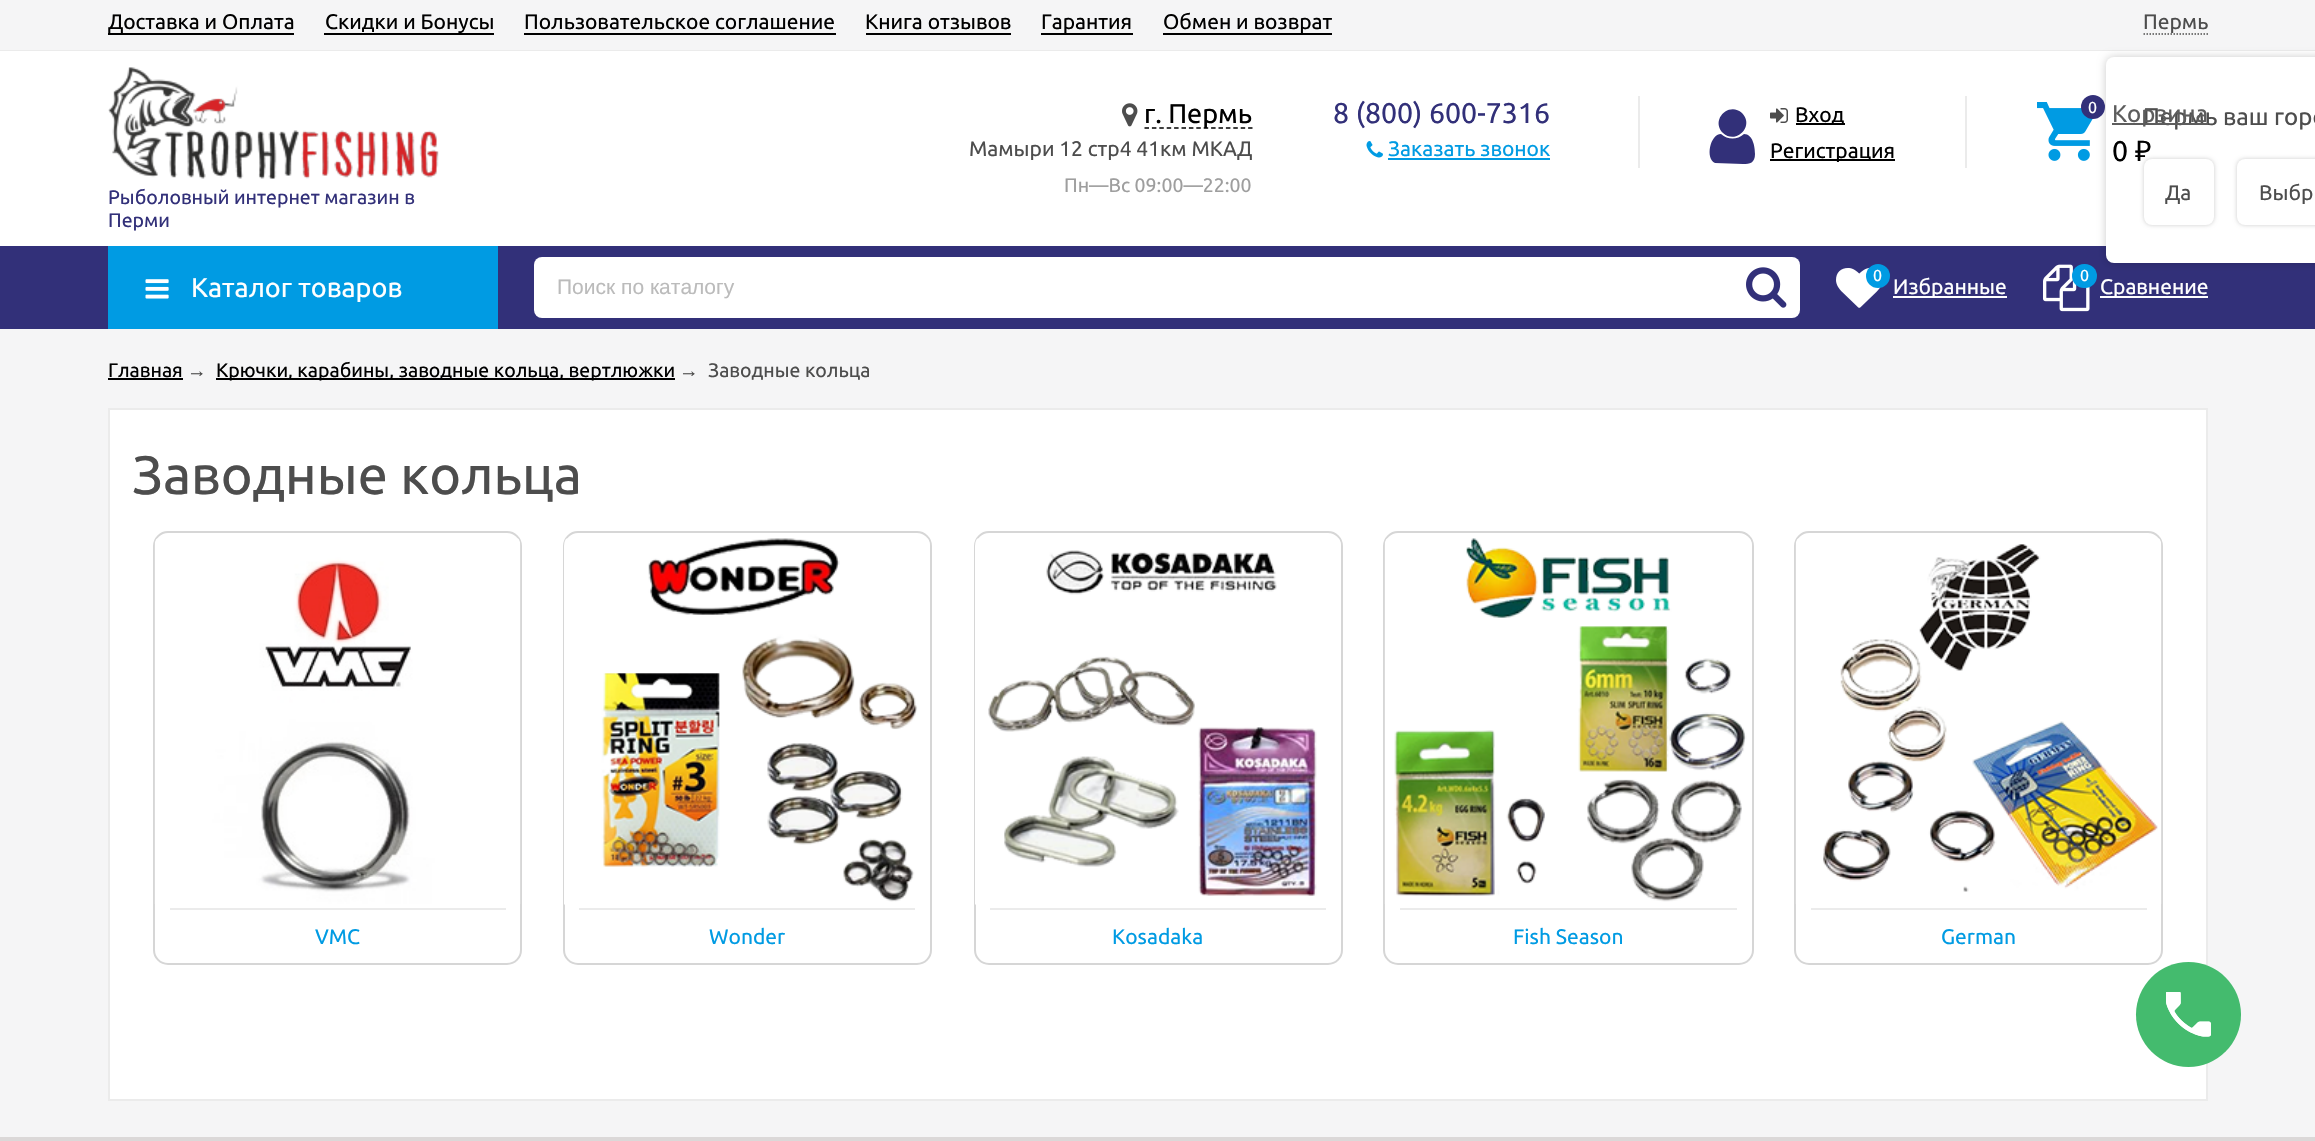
void draw(SkCanvas* canvas) {
	SkPaint fill;
	fill.setAntiAlias(true);
	auto makeFont = [&](const char* family, int weight, float size, bool italic = false) {
		SkFontStyle style(weight, SkFontStyle::kNormal_Width,
			italic ? SkFontStyle::kItalic_Slant : SkFontStyle::kUpright_Slant);
		SkFont result(fontMgr->matchFamilyStyle(family, style), size);
		result.setSubpixel(true);
		return result;
	};
	auto text = [&](const char* s, float x, float y, const SkFont& font) {
		canvas->drawString(s, x, y, font, fill);
	};
	auto box = [&](float l, float t, float r, float b) {
		canvas->drawRect(SkRect::MakeLTRB(l, t, r, b), fill);
	};
	auto roundBox = [&](float l, float t, float r, float b, float radius) {
		canvas->drawRoundRect(SkRect::MakeLTRB(l, t, r, b), radius, radius, fill);
	};
	auto picture = [&](const char* path, float l, float t, float r, float b) {
		auto image = SkImages::DeferredFromEncodedData(SkData::MakeFromFileName(path));
		canvas->drawImageRect(image, SkRect::MakeLTRB(l, t, r, b), SkSamplingOptions());
	};
	canvas->clear(0xFFF5F5F6);
	fill.setColor(0xFFEBEBEB);
	box(0, 50, 2315, 51);
	fill.setColor(0xFF000000);
	box(108, 33, 294, 35);
	box(324, 33, 494, 35);
	box(524, 33, 836, 35);
	box(866, 33, 1011, 35);
	box(1041, 33, 1133, 35);
	box(1163, 33, 1332, 35);
	fill.setStyle(SkPaint::kStroke_Style);
	fill.setStrokeWidth(1.5f);
	fill.setColor(0xFF4D4D4D);
	fill.setPathEffect(SkDashPathEffect::Make({{1.5f, 1.5f}}, 0));
	canvas->drawPath(SkPathBuilder().moveTo(2143.5f, 34).lineTo(2208, 34).detach(), fill);
	fill.setPathEffect(nullptr);
	fill.setStyle(SkPaint::kFill_Style);
	fill.setColor(0xFFFFFFFF);
	box(0, 51, 2315, 246);
	fill.setColor(0xFF323079);
	box(0, 246, 2315, 329);
	picture("image8.png", 2043, 264, 2090, 312);
	fill.setColor(0xFF009BE3);
	roundBox(2072, 264, 2097, 288, 12);
	fill.setColor(0x33000000);
	fill.setMaskFilter(SkMaskFilter::MakeBlur(kNormal_SkBlurStyle, 4));
	canvas->drawRoundRect(SkRect::MakeLTRB(2106, 57, 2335, 263), 8, 8, fill);
	fill.setMaskFilter(nullptr);
	fill.setColor(0xFFFFFFFF);
	roundBox(2106, 57, 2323, 263, 8);
	fill.setColor(0x33000000);
	fill.setMaskFilter(SkMaskFilter::MakeBlur(kNormal_SkBlurStyle, 2));
	canvas->drawRoundRect(SkRect::MakeLTRB(2144, 159, 2214, 225), 8, 8, fill);
	fill.setMaskFilter(nullptr);
	fill.setColor(0xFFFFFFFF);
	roundBox(2144, 159, 2214, 225, 8);
	fill.setColor(0x33000000);
	fill.setMaskFilter(SkMaskFilter::MakeBlur(kNormal_SkBlurStyle, 2));
	canvas->drawRoundRect(SkRect::MakeLTRB(2237, 159, 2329, 225), 8, 8, fill);
	fill.setMaskFilter(nullptr);
	fill.setColor(0xFFFFFFFF);
	roundBox(2237, 159, 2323, 225, 8);
	picture("image0.png", 1122, 103, 1138, 127);
	fill.setStyle(SkPaint::kStroke_Style);
	fill.setColor(0xFF000000);
	fill.setPathEffect(SkDashPathEffect::Make({{4.5f, 2.9f}}, 0));
	canvas->drawPath(SkPathBuilder().moveTo(1144.5f, 128).lineTo(1252.5f, 128).detach(), fill);
	fill.setPathEffect(nullptr);
	picture("image1.png", 1366, 141, 1383, 158);
	fill.setStyle(SkPaint::kFill_Style);
	fill.setColor(0xFF009BE3);
	box(1388, 158, 1550, 160);
	fill.setColor(0xFFEBEBEB);
	box(1965, 96, 1967, 168);
	box(1638, 96, 1640, 168);
	fill.setColor(0xFF323079);
	canvas->drawPath(SkPathBuilder().moveTo(1755, 154).cubicTo(1755, 163, 1750, 164, 1743, 164).lineTo(1715, 163).cubicTo(1705, 159, 1710, 134, 1721, 134).cubicTo(1728, 140, 1737, 140, 1744, 134).cubicTo(1753, 134, 1755, 147, 1755, 154).close().moveTo(1742, 113).cubicTo(1755, 126, 1736, 145, 1723, 133).cubicTo(1710, 120, 1729, 101, 1742, 113).close().detach(), fill);
	picture("image2.png", 1770, 108, 1788, 123);
	fill.setColor(0xFF000000);
	box(1796, 123, 1845, 125);
	box(1770, 159, 1895, 161);
	picture("image3.png", 2037, 102, 2093, 161);
	fill.setColor(0xFF323079);
	canvas->drawCircle(2093, 107, 12, fill);
	picture("image4.png", 108, 67, 439, 179);
	fill.setColor(0xFF009BE3);
	box(108, 246, 498, 329);
	picture("image5.png", 145, 279, 169, 299);
	fill.setColor(0xFFFFFFFF);
	roundBox(534, 257, 1800, 318, 8);
	picture("image6.png", 1746, 267, 1787, 308);
	picture("image7.png", 1836, 268, 1881, 308);
	fill.setColor(0xFF009BE3);
	canvas->drawCircle(1878, 276, 12, fill);
	fill.setColor(0xFFFFFFFF);
	box(1893, 296, 2007, 298);
	box(2100, 296, 2208, 298);
	fill.setColor(0xFF000000);
	box(108, 378, 183, 380);
	box(216, 378, 675, 380);
	fill.setColor(0xFFFFFFFF);
	canvas->drawRect(SkRect::MakeLTRB(109, 409, 2207, 1100), fill);
	fill.setStyle(SkPaint::kStroke_Style);
	fill.setStrokeWidth(2);
	fill.setColor(0xFFEBEBEB);
	canvas->drawRect(SkRect::MakeLTRB(109, 409, 2207, 1100), fill);
	fill.setColor(0xFFD6D6D6);
	canvas->drawRoundRect(SkRect::MakeLTRB(154, 532, 521, 964), 14, 14, fill);
	picture("image9.png", 154, 538, 521, 904);
	fill.setStyle(SkPaint::kFill_Style);
	fill.setColor(0xFFEBEBEB);
	box(170, 908, 506, 910);
	fill.setStyle(SkPaint::kStroke_Style);
	fill.setColor(0xFFD6D6D6);
	canvas->drawRoundRect(SkRect::MakeLTRB(564, 532, 931, 964), 14, 14, fill);
	picture("image10.png", 564, 538, 930, 905);
	fill.setStyle(SkPaint::kFill_Style);
	fill.setColor(0xFFEBEBEB);
	box(579, 908, 915, 910);
	fill.setStyle(SkPaint::kStroke_Style);
	fill.setColor(0xFFD6D6D6);
	canvas->drawRoundRect(SkRect::MakeLTRB(975, 532, 1342, 964), 14, 14, fill);
	picture("image11.png", 975, 538, 1341, 905);
	fill.setStyle(SkPaint::kFill_Style);
	fill.setColor(0xFFEBEBEB);
	box(990, 908, 1326, 910);
	fill.setStyle(SkPaint::kStroke_Style);
	fill.setColor(0xFFD6D6D6);
	canvas->drawRoundRect(SkRect::MakeLTRB(1384, 532, 1753, 964), 14, 14, fill);
	picture("image12.png", 1384, 538, 1752, 904);
	fill.setStyle(SkPaint::kFill_Style);
	fill.setColor(0xFFEBEBEB);
	box(1400, 908, 1737, 910);
	fill.setStyle(SkPaint::kStroke_Style);
	fill.setColor(0xFFD6D6D6);
	canvas->drawRoundRect(SkRect::MakeLTRB(1795, 532, 2162, 964), 14, 14, fill);
	picture("image13.png", 1795, 538, 2162, 904);
	fill.setStyle(SkPaint::kFill_Style);
	fill.setColor(0xFFEBEBEB);
	box(1811, 908, 2147, 910);
	fill.setColor(0xFF44BB6E);
	canvas->drawCircle(2188.5f, 1014.5f, 52.5f, fill);
	fill.setColor(0x1A44BB6E);
	canvas->drawCircle(2188.5f, 1014.5f, 52.5f, fill);
	picture("image14.png", 2166, 992, 2211, 1037);
	picture("image15.png", 2166, 992, 2211, 1037);
	fill.setColor(0xFFDBD8D8);
	box(0, 1137, 2315, 1141);
	auto font1 = makeFont("Ubuntu", 400, 21);
	fill.setColor(0xFF000000);
	text("Доставка и Оплата", 108, 29, font1);
	text("Скидки и Бонусы", 325, 29, font1);
	text("Пользовательское соглашение", 524, 29, font1);
	text("Книга отзывов", 865, 29, font1);
	text("Гарантия", 1041, 29, font1);
	text("Обмен и возврат", 1163, 29, font1);
	fill.setColor(0xFF4D4D4D);
	text("Пермь", 2143, 29, font1);
	auto font2 = makeFont("Ubuntu", 400, 24);
	text("Пермь ваш горо", 2143, 125, font2);
	text("Да", 2165, 200, font1);
	text("Выбр", 2259, 200, font1);
	auto font3 = makeFont("Ubuntu", 400, 27);
	fill.setColor(0xFF000000);
	text("г. Пермь", 1144, 123, font3);
	fill.setColor(0xFF4D4D4D);
	text("Мамыри 12 стр4 41км МКАД", 969, 156, font1);
	auto font4 = makeFont("Ubuntu", 400, 19.5f);
	fill.setColor(0xFF9E9E9E);
	text("Пн—Вс 09:00—22:00", 1064, 192, font4);
	auto font5 = makeFont("Ubuntu", 400, 28.5f);
	fill.setColor(0xFF323079);
	text("8 (800) 600-7316", 1333, 123, font5);
	fill.setColor(0xFF009BE3);
	text("Заказать звонок", 1388, 156, font1);
	fill.setColor(0xFF000000);
	text("Вход", 1795, 122, font1);
	text("Регистрация", 1770, 158, font1);
	auto font6 = makeFont("Ubuntu", 400, 16);
	fill.setColor(0xFFFFFFFF);
	text("0", 2088, 113, font6);
	fill.setColor(0xFF5D5D5D);
	box(2112, 123, 2208, 125);
	text("Корзина", 2112, 122, font2);
	fill.setColor(0xFF000000);
	text("0", 2112, 161, font5);
	auto font7 = makeFont("Noto Sans", 400, 28.5f);
	text("₽", 2135, 161, font7);
	fill.setColor(0xFF323079);
	text("Рыболовный интернет магазин в", 108, 204, font4);
	text("Перми", 108, 227, font4);
	fill.setColor(0xFFFFFFFF);
	text("Каталог товаров", 191, 297, font3);
	auto font8 = makeFont("Liberation Sans", 400, 21);
	fill.setColor(0xFFBBBBBB);
	text("Поиск по каталогу", 557, 294, font8);
	fill.setColor(0xFFFFFFFF);
	text("0", 1873, 281, font6);
	text("Избранные", 1893, 294, font1);
	text("0", 2080, 281, font6);
	text("Сравнение", 2100, 294, font1);
	fill.setColor(0xFF000000);
	text("Главная", 108, 377, font4);
	auto font9 = makeFont("Liberation Sans", 400, 19.5f);
	fill.setColor(0xFF4D4D4D);
	text("→", 187, 377, font9);
	fill.setColor(0xFF000000);
	text("Крючки, карабины, заводные кольца, вертлюжки", 216, 377, font4);
	fill.setColor(0xFF4D4D4D);
	text("→", 679, 377, font9);
	text("Заводные кольца", 708, 377, font4);
	auto font10 = makeFont("Ubuntu", 400, 54);
	text("Заводные кольца", 132, 494, font10);
	fill.setColor(0xFF009BE3);
	text("VMC", 315, 944, font1);
	text("Wonder", 709, 944, font1);
	text("Kosadaka", 1112, 944, font1);
	text("Fish Season", 1513, 944, font1);
	text("German", 1941, 944, font1);
}
